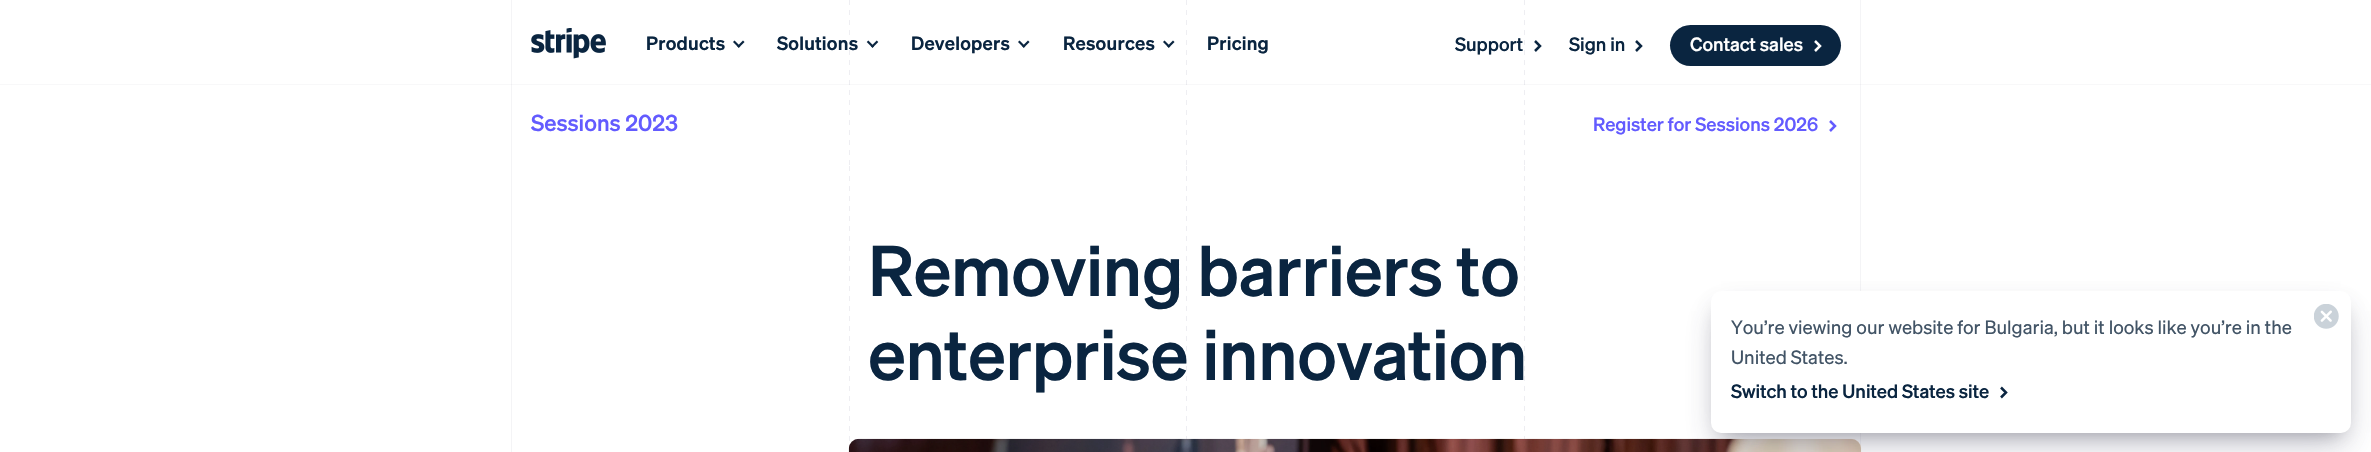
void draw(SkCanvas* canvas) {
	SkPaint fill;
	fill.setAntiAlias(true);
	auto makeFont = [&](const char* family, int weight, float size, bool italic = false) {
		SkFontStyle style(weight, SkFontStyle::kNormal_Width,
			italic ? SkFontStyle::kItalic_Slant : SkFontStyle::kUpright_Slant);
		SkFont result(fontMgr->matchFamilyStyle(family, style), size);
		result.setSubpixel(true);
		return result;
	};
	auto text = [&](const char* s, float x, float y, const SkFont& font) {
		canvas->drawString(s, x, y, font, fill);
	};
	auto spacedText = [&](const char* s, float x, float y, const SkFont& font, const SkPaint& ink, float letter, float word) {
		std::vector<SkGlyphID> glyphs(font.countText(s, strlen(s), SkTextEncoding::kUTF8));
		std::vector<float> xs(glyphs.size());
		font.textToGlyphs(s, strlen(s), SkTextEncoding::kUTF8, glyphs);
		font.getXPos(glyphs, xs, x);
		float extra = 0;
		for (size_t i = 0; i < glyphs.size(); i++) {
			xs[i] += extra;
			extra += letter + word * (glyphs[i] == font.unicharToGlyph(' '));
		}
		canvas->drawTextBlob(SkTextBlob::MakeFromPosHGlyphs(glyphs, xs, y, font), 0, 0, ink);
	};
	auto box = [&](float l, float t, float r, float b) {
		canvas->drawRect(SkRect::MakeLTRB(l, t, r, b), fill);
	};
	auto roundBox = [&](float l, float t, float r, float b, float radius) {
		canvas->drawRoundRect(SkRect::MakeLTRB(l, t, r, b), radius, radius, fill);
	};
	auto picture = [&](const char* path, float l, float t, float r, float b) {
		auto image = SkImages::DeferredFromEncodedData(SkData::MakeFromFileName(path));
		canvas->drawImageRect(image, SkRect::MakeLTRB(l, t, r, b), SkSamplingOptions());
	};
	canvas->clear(0xFFFFFFFF);
	{
		const SkColor colors[] = {0xFFEEEEF2, 0xFFEEEEF2, 0xFFFFFFFF, 0xFFFFFFFF};
		const float stops[] = {0, 0.5f, 0.5f, 1};
		const SkPoint ends[] = {{849, 0}, {849, 10}};
		fill.setShader(SkGradientShader::MakeLinear(ends, colors, stops, 4, SkTileMode::kClamp));
		fill.setAlpha(255);
	}
	box(849, 0, 850, 10);
	{
		const SkColor colors[] = {0xFFEEEEF2, 0xFFEEEEF2, 0xFFFFFFFF, 0xFFFFFFFF};
		const float stops[] = {0, 0.5f, 0.5f, 1};
		const SkPoint ends[] = {{849, 10}, {849, 20}};
		fill.setShader(SkGradientShader::MakeLinear(ends, colors, stops, 4, SkTileMode::kClamp));
		fill.setAlpha(255);
	}
	box(849, 10, 850, 20);
	{
		const SkColor colors[] = {0xFFEEEEF2, 0xFFEEEEF2, 0xFFFFFFFF, 0xFFFFFFFF};
		const float stops[] = {0, 0.5f, 0.5f, 1};
		const SkPoint ends[] = {{849, 20}, {849, 30}};
		fill.setShader(SkGradientShader::MakeLinear(ends, colors, stops, 4, SkTileMode::kClamp));
		fill.setAlpha(255);
	}
	box(849, 20, 850, 30);
	{
		const SkColor colors[] = {0xFFEEEEF2, 0xFFEEEEF2, 0xFFFFFFFF, 0xFFFFFFFF};
		const float stops[] = {0, 0.5f, 0.5f, 1};
		const SkPoint ends[] = {{849, 30}, {849, 40}};
		fill.setShader(SkGradientShader::MakeLinear(ends, colors, stops, 4, SkTileMode::kClamp));
		fill.setAlpha(255);
	}
	box(849, 30, 850, 40);
	{
		const SkColor colors[] = {0xFFEEEEF2, 0xFFEEEEF2, 0xFFFFFFFF, 0xFFFFFFFF};
		const float stops[] = {0, 0.5f, 0.5f, 1};
		const SkPoint ends[] = {{849, 40}, {849, 50}};
		fill.setShader(SkGradientShader::MakeLinear(ends, colors, stops, 4, SkTileMode::kClamp));
		fill.setAlpha(255);
	}
	box(849, 40, 850, 50);
	{
		const SkColor colors[] = {0xFFEEEEF2, 0xFFEEEEF2, 0xFFFFFFFF, 0xFFFFFFFF};
		const float stops[] = {0, 0.5f, 0.5f, 1};
		const SkPoint ends[] = {{849, 50}, {849, 60}};
		fill.setShader(SkGradientShader::MakeLinear(ends, colors, stops, 4, SkTileMode::kClamp));
		fill.setAlpha(255);
	}
	box(849, 50, 850, 60);
	{
		const SkColor colors[] = {0xFFEEEEF2, 0xFFEEEEF2, 0xFFFFFFFF, 0xFFFFFFFF};
		const float stops[] = {0, 0.5f, 0.5f, 1};
		const SkPoint ends[] = {{849, 60}, {849, 70}};
		fill.setShader(SkGradientShader::MakeLinear(ends, colors, stops, 4, SkTileMode::kClamp));
		fill.setAlpha(255);
	}
	box(849, 60, 850, 70);
	{
		const SkColor colors[] = {0xFFEEEEF2, 0xFFEEEEF2, 0xFFFFFFFF, 0xFFFFFFFF};
		const float stops[] = {0, 0.5f, 0.5f, 1};
		const SkPoint ends[] = {{849, 70}, {849, 80}};
		fill.setShader(SkGradientShader::MakeLinear(ends, colors, stops, 4, SkTileMode::kClamp));
		fill.setAlpha(255);
	}
	box(849, 70, 850, 80);
	{
		const SkColor colors[] = {0xFFEEEEF2, 0xFFEEEEF2, 0xFFFFFFFF, 0xFFFFFFFF};
		const float stops[] = {0, 0.5f, 0.5f, 1};
		const SkPoint ends[] = {{849, 80}, {849, 90}};
		fill.setShader(SkGradientShader::MakeLinear(ends, colors, stops, 4, SkTileMode::kClamp));
		fill.setAlpha(255);
	}
	box(849, 80, 850, 85);
	{
		const SkColor colors[] = {0xFFEEEEF2, 0xFFEEEEF2, 0xFFFFFFFF, 0xFFFFFFFF};
		const float stops[] = {0, 0.5f, 0.5f, 1};
		const SkPoint ends[] = {{1187, 0}, {1187, 10}};
		fill.setShader(SkGradientShader::MakeLinear(ends, colors, stops, 4, SkTileMode::kClamp));
		fill.setAlpha(255);
	}
	box(1186, 0, 1187, 10);
	{
		const SkColor colors[] = {0xFFEEEEF2, 0xFFEEEEF2, 0xFFFFFFFF, 0xFFFFFFFF};
		const float stops[] = {0, 0.5f, 0.5f, 1};
		const SkPoint ends[] = {{1187, 10}, {1187, 20}};
		fill.setShader(SkGradientShader::MakeLinear(ends, colors, stops, 4, SkTileMode::kClamp));
		fill.setAlpha(255);
	}
	box(1186, 10, 1187, 20);
	{
		const SkColor colors[] = {0xFFEEEEF2, 0xFFEEEEF2, 0xFFFFFFFF, 0xFFFFFFFF};
		const float stops[] = {0, 0.5f, 0.5f, 1};
		const SkPoint ends[] = {{1187, 20}, {1187, 30}};
		fill.setShader(SkGradientShader::MakeLinear(ends, colors, stops, 4, SkTileMode::kClamp));
		fill.setAlpha(255);
	}
	box(1186, 20, 1187, 30);
	{
		const SkColor colors[] = {0xFFEEEEF2, 0xFFEEEEF2, 0xFFFFFFFF, 0xFFFFFFFF};
		const float stops[] = {0, 0.5f, 0.5f, 1};
		const SkPoint ends[] = {{1187, 30}, {1187, 40}};
		fill.setShader(SkGradientShader::MakeLinear(ends, colors, stops, 4, SkTileMode::kClamp));
		fill.setAlpha(255);
	}
	box(1186, 30, 1187, 40);
	{
		const SkColor colors[] = {0xFFEEEEF2, 0xFFEEEEF2, 0xFFFFFFFF, 0xFFFFFFFF};
		const float stops[] = {0, 0.5f, 0.5f, 1};
		const SkPoint ends[] = {{1187, 40}, {1187, 50}};
		fill.setShader(SkGradientShader::MakeLinear(ends, colors, stops, 4, SkTileMode::kClamp));
		fill.setAlpha(255);
	}
	box(1186, 40, 1187, 50);
	{
		const SkColor colors[] = {0xFFEEEEF2, 0xFFEEEEF2, 0xFFFFFFFF, 0xFFFFFFFF};
		const float stops[] = {0, 0.5f, 0.5f, 1};
		const SkPoint ends[] = {{1187, 50}, {1187, 60}};
		fill.setShader(SkGradientShader::MakeLinear(ends, colors, stops, 4, SkTileMode::kClamp));
		fill.setAlpha(255);
	}
	box(1186, 50, 1187, 60);
	{
		const SkColor colors[] = {0xFFEEEEF2, 0xFFEEEEF2, 0xFFFFFFFF, 0xFFFFFFFF};
		const float stops[] = {0, 0.5f, 0.5f, 1};
		const SkPoint ends[] = {{1187, 60}, {1187, 70}};
		fill.setShader(SkGradientShader::MakeLinear(ends, colors, stops, 4, SkTileMode::kClamp));
		fill.setAlpha(255);
	}
	box(1186, 60, 1187, 70);
	{
		const SkColor colors[] = {0xFFEEEEF2, 0xFFEEEEF2, 0xFFFFFFFF, 0xFFFFFFFF};
		const float stops[] = {0, 0.5f, 0.5f, 1};
		const SkPoint ends[] = {{1187, 70}, {1187, 80}};
		fill.setShader(SkGradientShader::MakeLinear(ends, colors, stops, 4, SkTileMode::kClamp));
		fill.setAlpha(255);
	}
	box(1186, 70, 1187, 80);
	{
		const SkColor colors[] = {0xFFEEEEF2, 0xFFEEEEF2, 0xFFFFFFFF, 0xFFFFFFFF};
		const float stops[] = {0, 0.5f, 0.5f, 1};
		const SkPoint ends[] = {{1187, 80}, {1187, 90}};
		fill.setShader(SkGradientShader::MakeLinear(ends, colors, stops, 4, SkTileMode::kClamp));
		fill.setAlpha(255);
	}
	box(1186, 80, 1187, 85);
	{
		const SkColor colors[] = {0xFFEEEEF2, 0xFFEEEEF2, 0xFFFFFFFF, 0xFFFFFFFF};
		const float stops[] = {0, 0.5f, 0.5f, 1};
		const SkPoint ends[] = {{1524, 0}, {1524, 10}};
		fill.setShader(SkGradientShader::MakeLinear(ends, colors, stops, 4, SkTileMode::kClamp));
		fill.setAlpha(255);
	}
	box(1524, 0, 1525, 10);
	{
		const SkColor colors[] = {0xFFEEEEF2, 0xFFEEEEF2, 0xFFFFFFFF, 0xFFFFFFFF};
		const float stops[] = {0, 0.5f, 0.5f, 1};
		const SkPoint ends[] = {{1524, 10}, {1524, 20}};
		fill.setShader(SkGradientShader::MakeLinear(ends, colors, stops, 4, SkTileMode::kClamp));
		fill.setAlpha(255);
	}
	box(1524, 10, 1525, 20);
	{
		const SkColor colors[] = {0xFFEEEEF2, 0xFFEEEEF2, 0xFFFFFFFF, 0xFFFFFFFF};
		const float stops[] = {0, 0.5f, 0.5f, 1};
		const SkPoint ends[] = {{1524, 20}, {1524, 30}};
		fill.setShader(SkGradientShader::MakeLinear(ends, colors, stops, 4, SkTileMode::kClamp));
		fill.setAlpha(255);
	}
	box(1524, 20, 1525, 30);
	{
		const SkColor colors[] = {0xFFEEEEF2, 0xFFEEEEF2, 0xFFFFFFFF, 0xFFFFFFFF};
		const float stops[] = {0, 0.5f, 0.5f, 1};
		const SkPoint ends[] = {{1524, 30}, {1524, 40}};
		fill.setShader(SkGradientShader::MakeLinear(ends, colors, stops, 4, SkTileMode::kClamp));
		fill.setAlpha(255);
	}
	box(1524, 30, 1525, 40);
	{
		const SkColor colors[] = {0xFFEEEEF2, 0xFFEEEEF2, 0xFFFFFFFF, 0xFFFFFFFF};
		const float stops[] = {0, 0.5f, 0.5f, 1};
		const SkPoint ends[] = {{1524, 40}, {1524, 50}};
		fill.setShader(SkGradientShader::MakeLinear(ends, colors, stops, 4, SkTileMode::kClamp));
		fill.setAlpha(255);
	}
	box(1524, 40, 1525, 50);
	{
		const SkColor colors[] = {0xFFEEEEF2, 0xFFEEEEF2, 0xFFFFFFFF, 0xFFFFFFFF};
		const float stops[] = {0, 0.5f, 0.5f, 1};
		const SkPoint ends[] = {{1524, 50}, {1524, 60}};
		fill.setShader(SkGradientShader::MakeLinear(ends, colors, stops, 4, SkTileMode::kClamp));
		fill.setAlpha(255);
	}
	box(1524, 50, 1525, 60);
	{
		const SkColor colors[] = {0xFFEEEEF2, 0xFFEEEEF2, 0xFFFFFFFF, 0xFFFFFFFF};
		const float stops[] = {0, 0.5f, 0.5f, 1};
		const SkPoint ends[] = {{1524, 60}, {1524, 70}};
		fill.setShader(SkGradientShader::MakeLinear(ends, colors, stops, 4, SkTileMode::kClamp));
		fill.setAlpha(255);
	}
	box(1524, 60, 1525, 70);
	{
		const SkColor colors[] = {0xFFEEEEF2, 0xFFEEEEF2, 0xFFFFFFFF, 0xFFFFFFFF};
		const float stops[] = {0, 0.5f, 0.5f, 1};
		const SkPoint ends[] = {{1524, 70}, {1524, 80}};
		fill.setShader(SkGradientShader::MakeLinear(ends, colors, stops, 4, SkTileMode::kClamp));
		fill.setAlpha(255);
	}
	box(1524, 70, 1525, 80);
	{
		const SkColor colors[] = {0xFFEEEEF2, 0xFFEEEEF2, 0xFFFFFFFF, 0xFFFFFFFF};
		const float stops[] = {0, 0.5f, 0.5f, 1};
		const SkPoint ends[] = {{1524, 80}, {1524, 90}};
		fill.setShader(SkGradientShader::MakeLinear(ends, colors, stops, 4, SkTileMode::kClamp));
		fill.setAlpha(255);
	}
	box(1524, 80, 1525, 85);
	picture("image0.png", 531, 28, 606, 59);
	picture("image1.png", 733, 40, 741, 48);
	picture("image2.png", 737, 40, 745, 48);
	picture("image3.png", 866, 40, 874, 48);
	picture("image4.png", 871, 40, 879, 48);
	picture("image1.png", 1018, 40, 1026, 48);
	picture("image2.png", 1022, 40, 1030, 48);
	picture("image1.png", 1163, 40, 1171, 48);
	picture("image2.png", 1167, 40, 1175, 48);
	fill.setStyle(SkPaint::kStroke_Style);
	fill.setStrokeWidth(2.5f);
	fill.setShader(nullptr);
	fill.setColor(0xFF0A2540);
	canvas->drawPath(SkPathBuilder().moveTo(1535, 41).lineTo(1540, 46).lineTo(1535, 51).detach(), fill);
	canvas->drawPath(SkPathBuilder().moveTo(1636, 41).lineTo(1641, 46).lineTo(1636, 51).detach(), fill);
	fill.setStyle(SkPaint::kFill_Style);
	roundBox(1670, 25, 1841, 66, 20.5f);
	fill.setStyle(SkPaint::kStroke_Style);
	fill.setColor(0xFFFFFFFF);
	canvas->drawPath(SkPathBuilder().moveTo(1815, 41).lineTo(1820, 46).lineTo(1815, 51).detach(), fill);
	fill.setStyle(SkPaint::kFill_Style);
	fill.setColor(0xFFF4F4F6);
	box(511, 0, 512, 452);
	box(1860, 0, 1861, 452);
	fill.setColor(0x0A424770);
	box(0, 84, 2371, 85);
	picture("image5.png", 849, 90, 850, 165);
	picture("image5.png", 1186, 90, 1187, 165);
	picture("image5.png", 1524, 90, 1525, 165);
	fill.setStyle(SkPaint::kStroke_Style);
	fill.setColor(0xFF635BFF);
	canvas->drawPath(SkPathBuilder().moveTo(1830, 121).lineTo(1835, 126).lineTo(1830, 131).detach(), fill);
	picture("image6.png", 849, 166, 850, 448);
	picture("image7.png", 1186, 166, 1187, 439);
	picture("image7.png", 1524, 166, 1525, 439);
	picture("image8.png", 848, 438, 1862, 452);
	fill.setStyle(SkPaint::kFill_Style);
	fill.setColor(0x1A000000);
	roundBox(849, 439, 1861, 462, 10);
	fill.setColor(0x4D000000);
	fill.setMaskFilter(SkMaskFilter::MakeBlur(kNormal_SkBlurStyle, 10));
	canvas->drawRect(SkRect::MakeLTRB(1721, 311, 2341, 433), fill);
	fill.setMaskFilter(nullptr);
	fill.setColor(0x4032325D);
	fill.setMaskFilter(SkMaskFilter::MakeBlur(kNormal_SkBlurStyle, 17));
	canvas->drawRoundRect(SkRect::MakeLTRB(1718, 314, 2345, 443), 4, 4, fill);
	fill.setMaskFilter(nullptr);
	fill.setColor(0xFFFFFFFF);
	roundBox(1711, 291, 2351, 433, 10);
	picture("image9.png", 2314, 304, 2339, 329);
	fill.setStyle(SkPaint::kStroke_Style);
	fill.setColor(0xFF0A2540);
	canvas->drawPath(SkPathBuilder().moveTo(2001, 387.5f).lineTo(2006, 392.5f).lineTo(2001, 397.5f).detach(), fill);
	auto font1 = makeFont("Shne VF", 500, 18.75f);
	fill.setStyle(SkPaint::kFill_Style);
	spacedText("Products", 646, 50, font1, fill, 0.25f, 0);
	spacedText("Solutions", 777, 50, font1, fill, 0.25f, 0);
	spacedText("Developers", 911, 50, font1, fill, 0.25f, 0);
	spacedText("Resources", 1063, 50, font1, fill, 0.25f, 0);
	spacedText("Pricing", 1207, 50, font1, fill, 0.25f, 0);
	auto font2 = makeFont("Shne VF", 400, 18.75f);
	text("Support", 1455, 51, font2);
	text("Sign in", 1569, 51, font2);
	fill.setColor(0xFFFFFFFF);
	text("Contact sales", 1690, 51, font2);
	auto font3 = makeFont("Shne VF", 400, 22.5f);
	fill.setColor(0xFF635BFF);
	text("Sessions 2023", 531, 131, font3);
	text("Register for Sessions 2026", 1593, 131, font2);
	auto font4 = makeFont("Shne VF", 400, 70);
	fill.setColor(0xFF0A2540);
	spacedText("Removing barriers to", 868, 296, font4, fill, -0.3f, 0);
	spacedText("enterprise innovation", 868, 380, font4, fill, -0.3f, 0);
	auto font5 = makeFont("Shne VF", 300, 18.75f);
	fill.setColor(0xFF425466);
	text("You’re viewing our website for Bulgaria, but it looks like you’re in the", 1731, 334, font5);
	text("United States.", 1731, 364, font5);
	fill.setColor(0xFF0A2540);
	text("Switch to the United States site", 1731, 398, font2);
}
